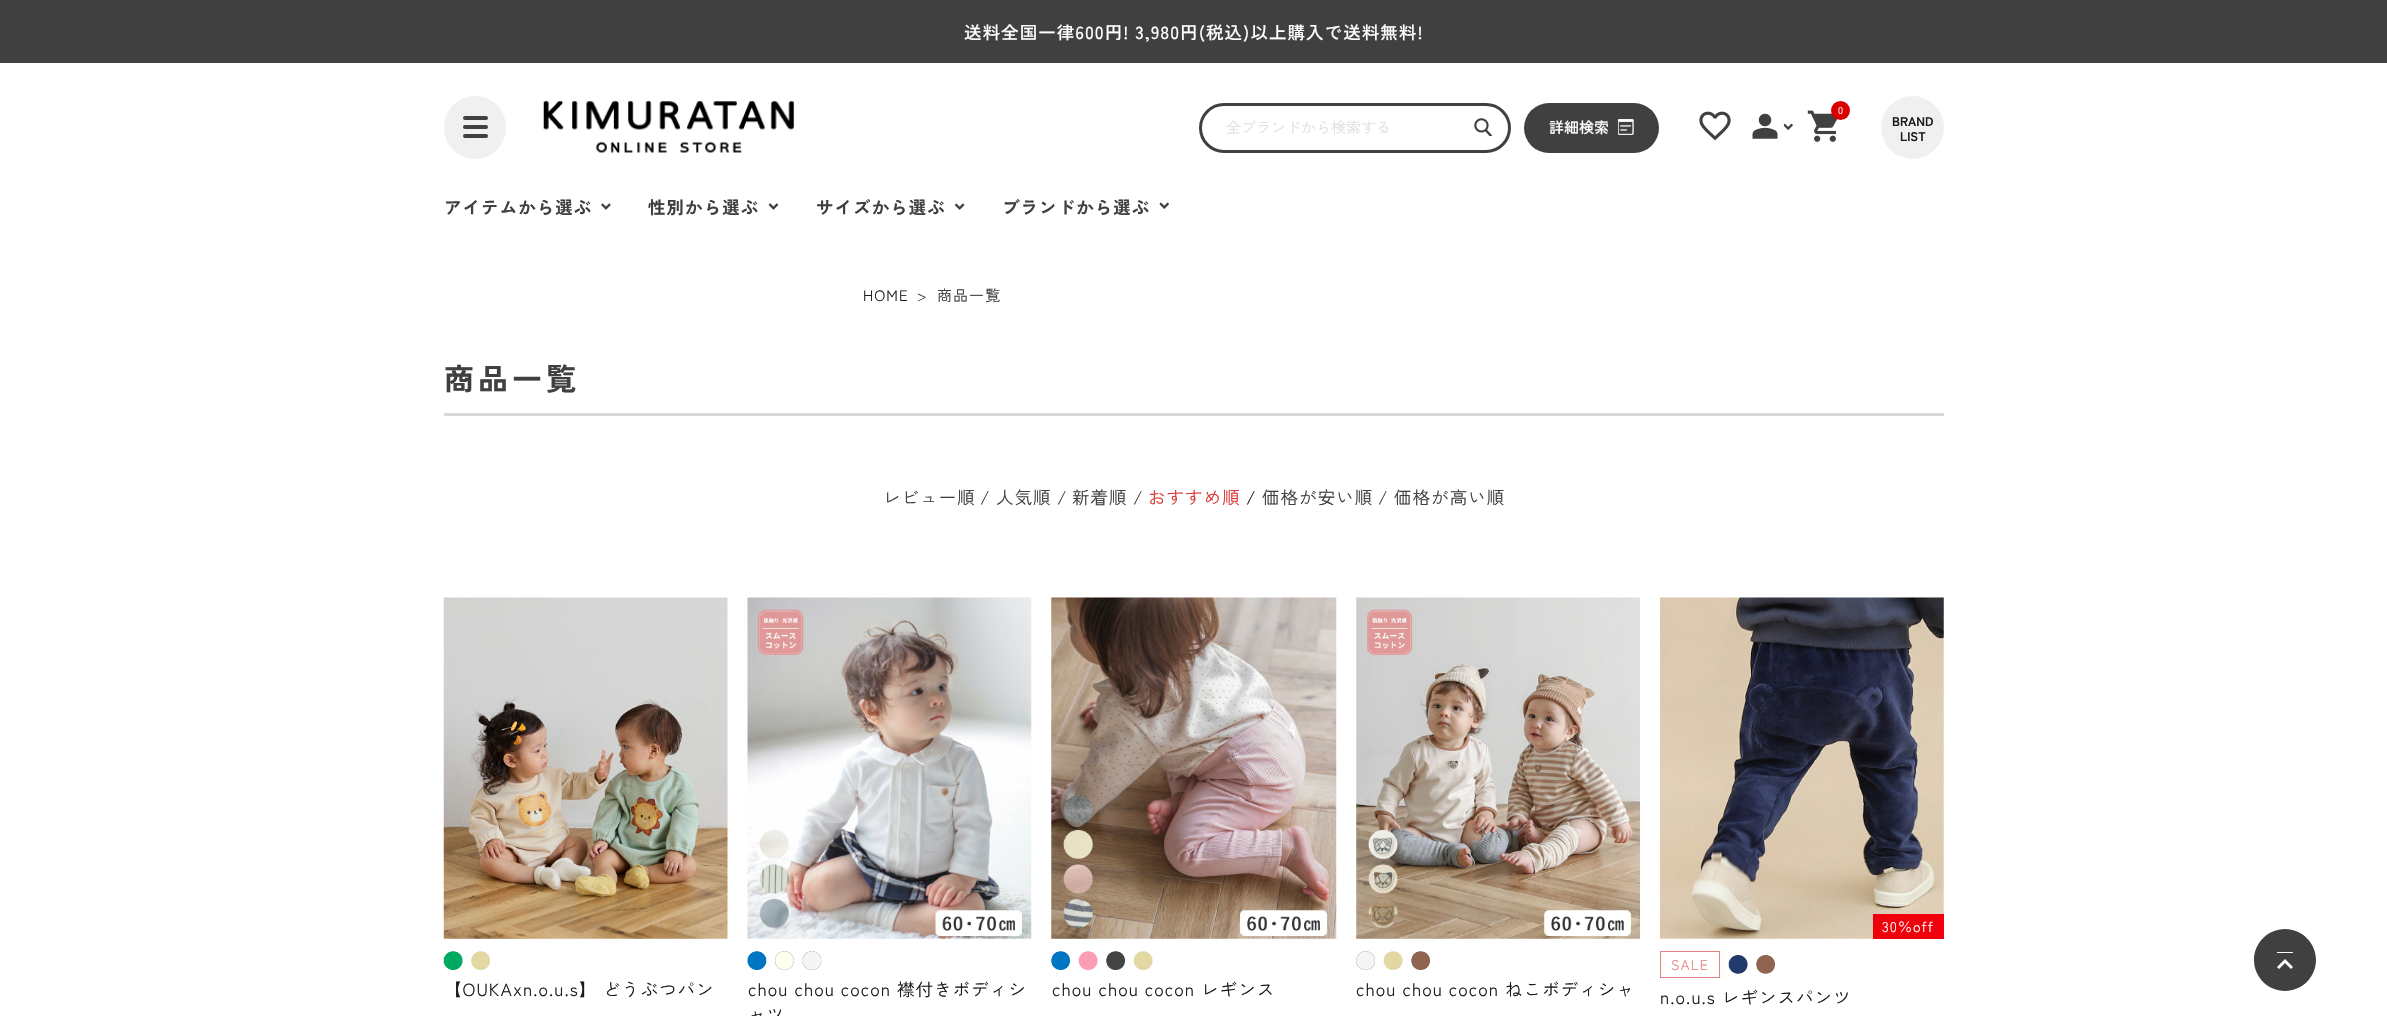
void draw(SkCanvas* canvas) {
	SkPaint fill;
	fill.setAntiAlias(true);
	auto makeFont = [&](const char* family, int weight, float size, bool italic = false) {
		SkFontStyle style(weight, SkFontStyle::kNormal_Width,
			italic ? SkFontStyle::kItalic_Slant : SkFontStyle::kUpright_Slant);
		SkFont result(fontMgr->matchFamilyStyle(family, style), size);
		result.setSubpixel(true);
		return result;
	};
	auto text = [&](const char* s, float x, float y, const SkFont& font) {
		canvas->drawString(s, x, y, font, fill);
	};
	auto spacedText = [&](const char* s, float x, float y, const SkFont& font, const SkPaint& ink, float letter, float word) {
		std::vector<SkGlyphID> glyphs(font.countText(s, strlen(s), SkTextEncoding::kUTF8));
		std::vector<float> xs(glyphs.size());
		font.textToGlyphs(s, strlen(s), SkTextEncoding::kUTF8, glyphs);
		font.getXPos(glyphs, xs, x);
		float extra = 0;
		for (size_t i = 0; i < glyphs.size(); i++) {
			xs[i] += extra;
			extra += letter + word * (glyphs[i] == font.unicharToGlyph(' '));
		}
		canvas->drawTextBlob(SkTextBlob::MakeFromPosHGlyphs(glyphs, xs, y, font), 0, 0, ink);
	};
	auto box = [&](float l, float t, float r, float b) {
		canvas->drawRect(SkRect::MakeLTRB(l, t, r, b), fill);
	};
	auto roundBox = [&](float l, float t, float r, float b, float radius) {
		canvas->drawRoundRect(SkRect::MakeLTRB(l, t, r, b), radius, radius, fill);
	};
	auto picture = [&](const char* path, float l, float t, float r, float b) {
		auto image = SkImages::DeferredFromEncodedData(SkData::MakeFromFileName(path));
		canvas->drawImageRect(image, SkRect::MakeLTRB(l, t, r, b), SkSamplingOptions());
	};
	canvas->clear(0xFFFFFFFF);
	fill.setColor(0xFF404040);
	box(0, 0, 2387, 63);
	fill.setColor(0xFFF0F0F0);
	roundBox(444, 96, 506, 159, 31);
	fill.setColor(0xFF404040);
	roundBox(463, 116, 488, 120, 2);
	roundBox(463, 125, 488, 129, 2);
	roundBox(463, 134, 488, 138, 2);
	picture("image0.png", 543, 101, 794, 153);
	picture("image1.png", 1699, 111, 1731, 141);
	picture("image2.png", 1752, 113, 1778, 139);
	picture("image3.png", 1783, 123, 1793, 131);
	picture("image4.png", 1807, 110, 1838, 142);
	fill.setColor(0xFFDB0000);
	canvas->drawCircle(1840.5f, 110.5f, 9.5f, fill);
	fill.setStyle(SkPaint::kStroke_Style);
	fill.setStrokeWidth(3);
	fill.setColor(0xFF404040);
	canvas->drawRoundRect(SkRect::MakeLTRB(1200.5f, 104.5f, 1509.5f, 151.5f), 23.5f, 23.5f, fill);
	picture("image5.png", 1474, 118, 1492, 136);
	fill.setStyle(SkPaint::kFill_Style);
	roundBox(1524, 103, 1659, 153, 25);
	picture("image6.png", 1618, 119, 1634, 135);
	fill.setColor(0xFFF0F0F0);
	canvas->drawCircle(1912.5f, 127.5f, 31.5f, fill);
	picture("image7.png", 601, 203, 611, 210);
	picture("image8.png", 768, 203, 779, 210);
	picture("image9.png", 954, 203, 965, 210);
	picture("image10.png", 1159, 202, 1169, 209);
	fill.setColor(0xFFD9D9D9);
	box(444, 413, 1944, 416);
	picture("image11.png", 443, 597, 728, 939);
	picture("image12.png", 443, 951, 463, 970);
	picture("image13.png", 471, 951, 490, 970);
	picture("image14.png", 747, 597, 1032, 939);
	picture("image15.png", 747, 951, 767, 970);
	picture("image16.png", 775, 951, 794, 970);
	picture("image17.png", 802, 951, 822, 970);
	picture("image18.png", 1051, 597, 1337, 939);
	picture("image19.png", 1051, 951, 1070, 970);
	picture("image20.png", 1078, 951, 1098, 970);
	picture("image21.png", 1106, 951, 1125, 970);
	picture("image22.png", 1133, 951, 1153, 970);
	picture("image23.png", 1356, 597, 1640, 939);
	picture("image24.png", 1356, 951, 1375, 970);
	picture("image25.png", 1383, 951, 1403, 970);
	picture("image26.png", 1411, 951, 1430, 970);
	picture("image27.png", 1660, 597, 1944, 939);
	fill.setColor(0xFFEF000A);
	box(1873, 914, 1944, 939);
	fill.setStyle(SkPaint::kStroke_Style);
	fill.setStrokeWidth(1);
	fill.setColor(0xFFE28582);
	canvas->drawRect(SkRect::MakeLTRB(1660.5f, 951.5f, 1719.5f, 977.5f), fill);
	picture("image28.png", 1728, 955, 1748, 974);
	picture("image29.png", 1756, 955, 1775, 974);
	fill.setStyle(SkPaint::kFill_Style);
	fill.setColor(0xFF404040);
	canvas->drawPath(SkPathBuilder().moveTo(2285, 929).cubicTo(2268, 929, 2254, 943, 2254, 960).cubicTo(2254, 977, 2268, 991, 2285, 991).cubicTo(2302, 991, 2316, 977, 2316, 960).cubicTo(2316, 943, 2302, 929, 2285, 929).close().moveTo(2277, 952).lineTo(2293, 952).lineTo(2293, 953).lineTo(2277, 953).close().moveTo(2291, 969).lineTo(2285, 963).lineTo(2279, 969).lineTo(2277, 967).lineTo(2285, 959).lineTo(2293, 967).close().detach(), fill);
	auto font1 = makeFont("Zen Kaku Gothic New", 500, 17.5f);
	fill.setColor(0xFFFFFFFF);
	spacedText("送料全国一律600円! 3,980円(税込)以上購入で送料無料!", 964, 39, font1, fill, 1.05f, 0);
	auto font2 = makeFont("Zen Kaku Gothic New", 400, 10);
	text("0", 1838, 114, font2);
	auto font3 = makeFont("Zen Kaku Gothic New", 400, 15);
	fill.setColor(0xFFDFDFDF);
	text("全ブランドから検索する", 1226, 133, font3);
	auto font4 = makeFont("Zen Kaku Gothic New", 500, 15);
	fill.setColor(0xFFFFFFFF);
	text("詳細検索", 1549, 133, font4);
	auto font5 = makeFont("Zen Kaku Gothic New", 700, 12.5f);
	fill.setColor(0xFF1B1B1B);
	text("BRAND", 1892, 126, font5);
	text("LIST", 1900, 141, font5);
	auto font6 = makeFont("Zen Kaku Gothic New", 700, 17.5f);
	fill.setColor(0xFF404040);
	spacedText("アイテムから選ぶ", 444, 214, font6, fill, 1.05f, 0);
	spacedText("性別から選ぶ", 648, 214, font6, fill, 1.05f, 0);
	spacedText("サイズから選ぶ", 816, 214, font6, fill, 1.05f, 0);
	spacedText("ブランドから選ぶ", 1002, 214, font6, fill, 1.05f, 0);
	fill.setColor(0xFF1B1B1B);
	spacedText("HOME", 863, 301, font3, fill, 1.05f, 0);
	fill.setColor(0xFF404040);
	spacedText(">", 917, 301, font3, fill, 1.05f, 0);
	spacedText("商品一覧", 937, 301, font3, fill, 1.05f, 0);
	auto font7 = makeFont("Zen Kaku Gothic New", 700, 30);
	spacedText("商品一覧", 444, 390, font7, fill, 4, 0);
	auto font8 = makeFont("Zen Kaku Gothic New", 400, 17.5f);
	spacedText("レビュー順", 883, 504, font8, fill, 1.05f, 0);
	spacedText("/", 980, 504, font8, fill, 1.05f, 0);
	spacedText("人気順", 996, 504, font8, fill, 1.05f, 0);
	spacedText("/", 1057, 504, font8, fill, 1.05f, 0);
	spacedText("新着順", 1072, 504, font8, fill, 1.05f, 0);
	spacedText("/", 1133, 504, font8, fill, 1.05f, 0);
	fill.setColor(0xFFDA3737);
	spacedText("おすすめ順", 1148, 504, font8, fill, 1.05f, 0);
	fill.setColor(0xFF1B1B1B);
	spacedText("/", 1246, 504, font8, fill, 1.05f, 0);
	fill.setColor(0xFF404040);
	spacedText("価格が安い順", 1262, 504, font8, fill, 1.05f, 0);
	spacedText("/", 1378, 504, font8, fill, 1.05f, 0);
	spacedText("価格が高い順", 1394, 504, font8, fill, 1.05f, 0);
	fill.setColor(0xFF1B1B1B);
	spacedText("【OUKAxn.o.u.s】 どうぶつパン", 444, 996, font8, fill, 1.05f, 0);
	spacedText("chou chou cocon 襟付きボディシ", 748, 996, font8, fill, 1.05f, 0);
	spacedText("ャツ", 748, 1021, font8, fill, 1.05f, 0);
	spacedText("chou chou cocon レギンス", 1052, 996, font8, fill, 1.05f, 0);
	spacedText("chou chou cocon ねこボディシャ", 1356, 996, font8, fill, 1.05f, 0);
	auto font9 = makeFont("Zen Kaku Gothic New", 400, 14);
	fill.setColor(0xFFFFFFFF);
	spacedText("30％off", 1882, 932, font9, fill, 1.05f, 0);
	fill.setColor(0xFFE28582);
	spacedText("SALE", 1671, 970, font9, fill, 1.05f, 0);
	fill.setColor(0xFF1B1B1B);
	spacedText("n.o.u.s レギンスパンツ", 1660, 1004, font8, fill, 1.05f, 0);
}
